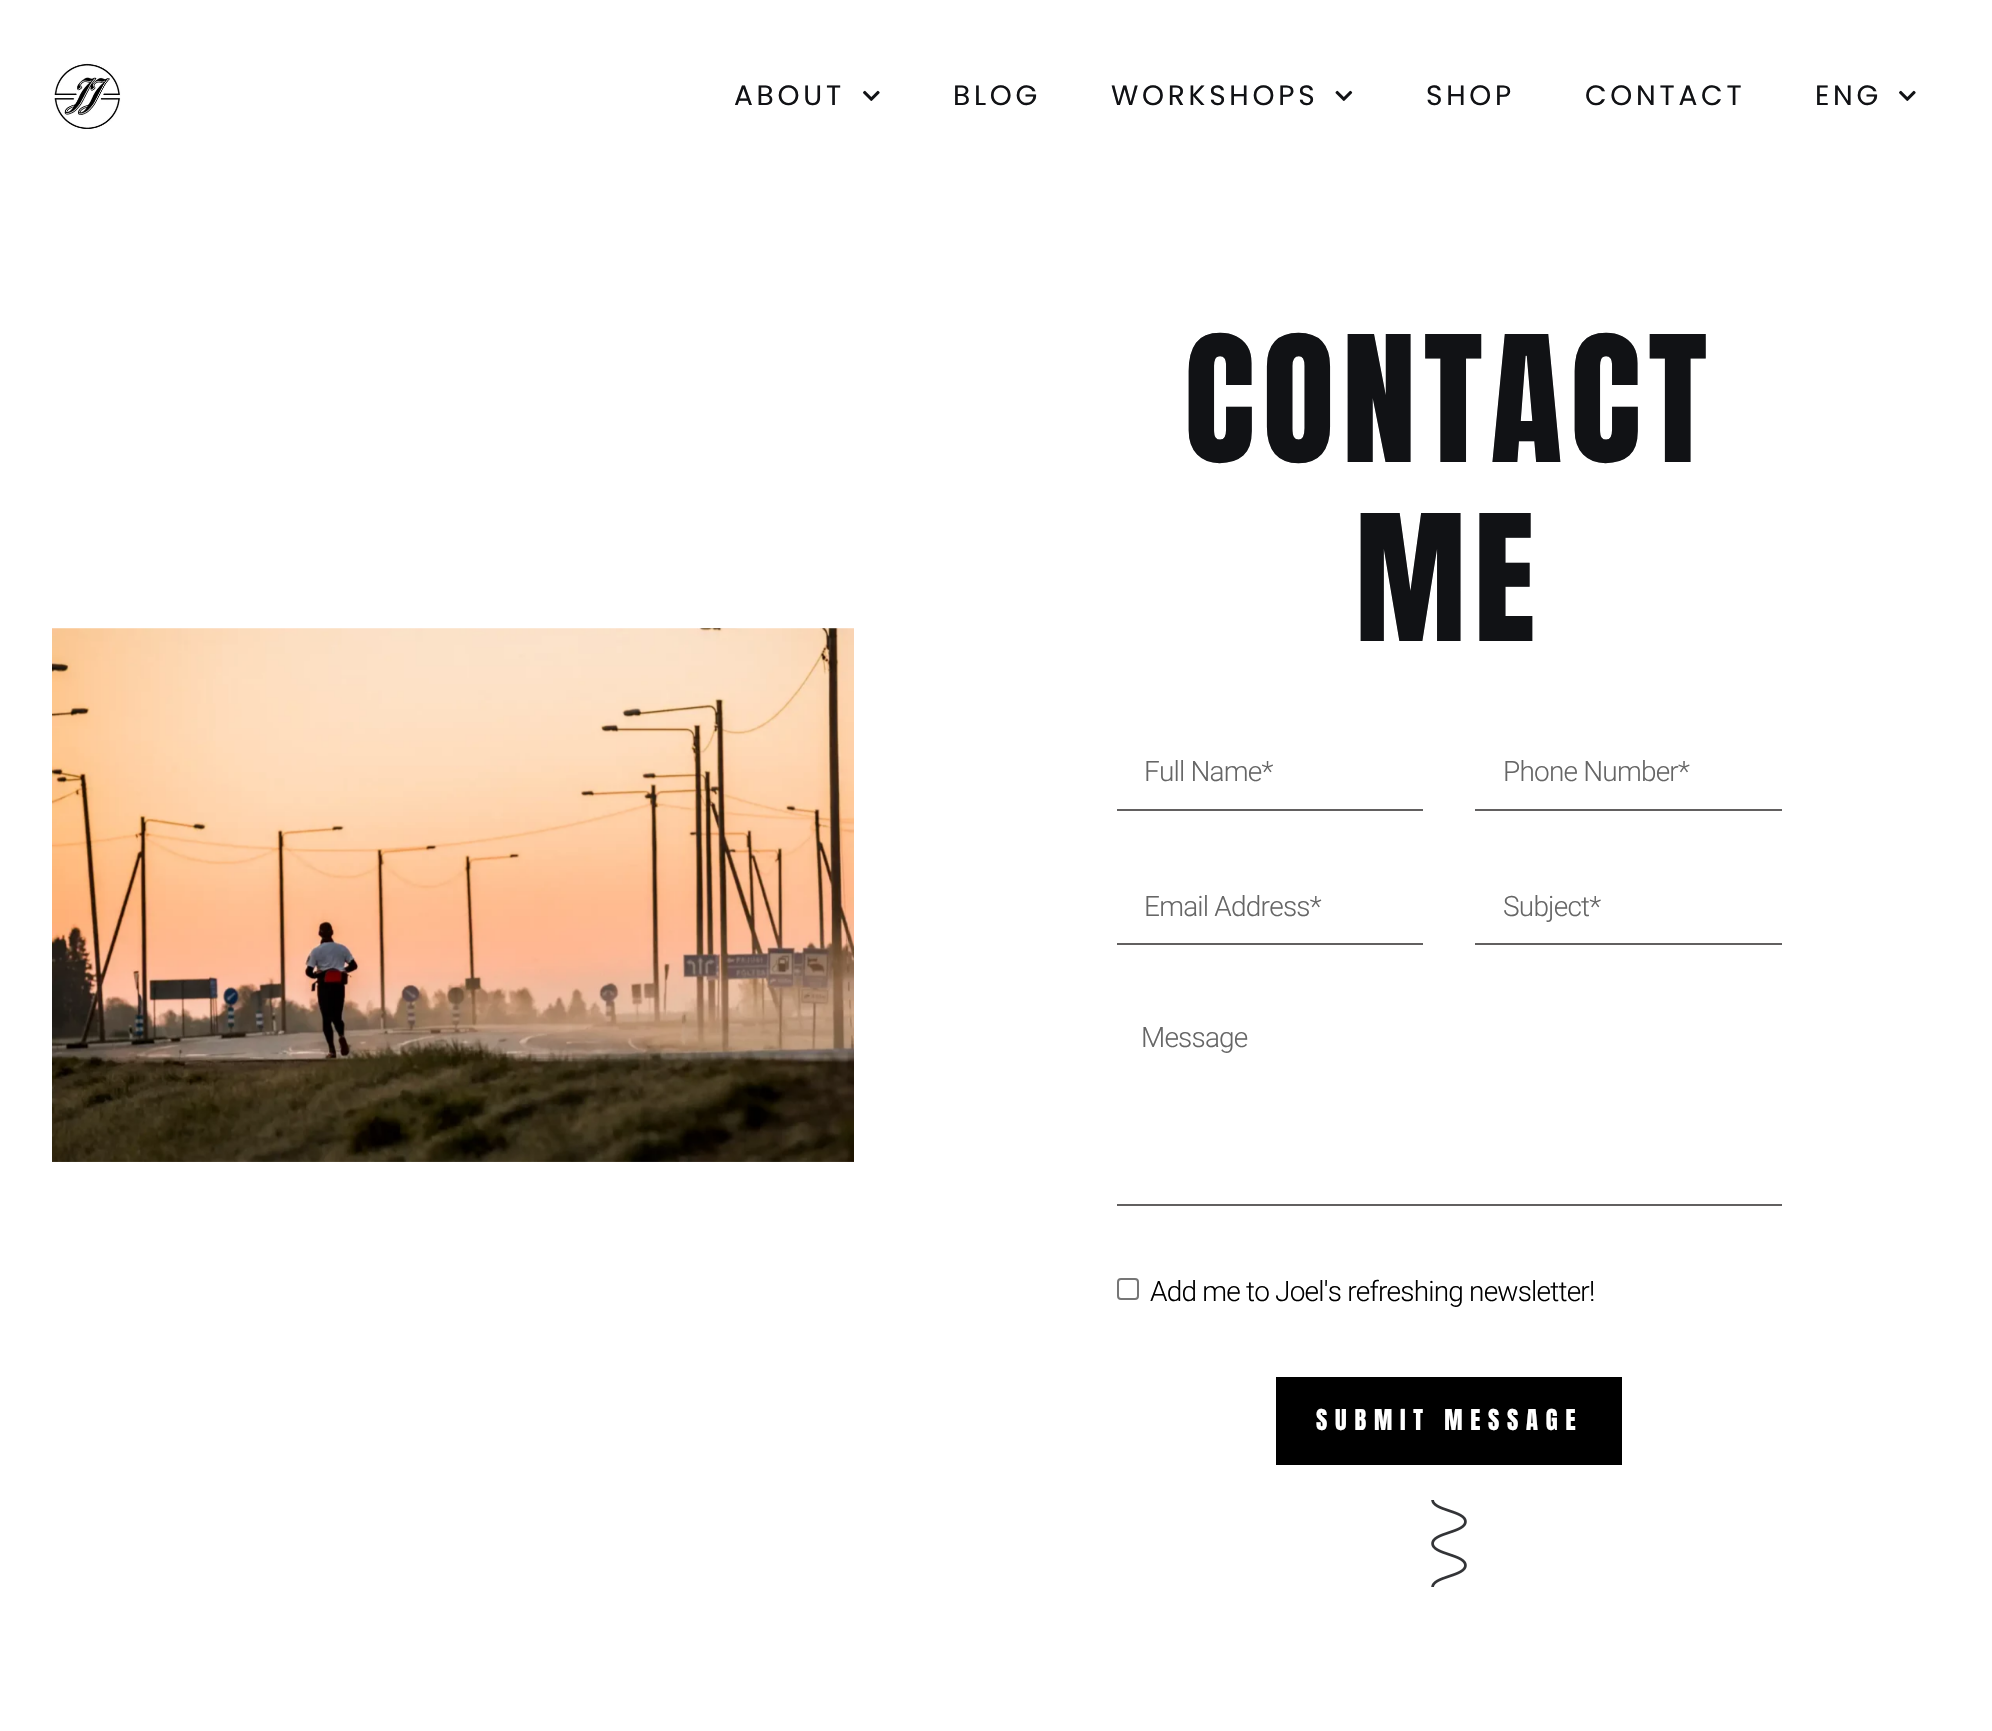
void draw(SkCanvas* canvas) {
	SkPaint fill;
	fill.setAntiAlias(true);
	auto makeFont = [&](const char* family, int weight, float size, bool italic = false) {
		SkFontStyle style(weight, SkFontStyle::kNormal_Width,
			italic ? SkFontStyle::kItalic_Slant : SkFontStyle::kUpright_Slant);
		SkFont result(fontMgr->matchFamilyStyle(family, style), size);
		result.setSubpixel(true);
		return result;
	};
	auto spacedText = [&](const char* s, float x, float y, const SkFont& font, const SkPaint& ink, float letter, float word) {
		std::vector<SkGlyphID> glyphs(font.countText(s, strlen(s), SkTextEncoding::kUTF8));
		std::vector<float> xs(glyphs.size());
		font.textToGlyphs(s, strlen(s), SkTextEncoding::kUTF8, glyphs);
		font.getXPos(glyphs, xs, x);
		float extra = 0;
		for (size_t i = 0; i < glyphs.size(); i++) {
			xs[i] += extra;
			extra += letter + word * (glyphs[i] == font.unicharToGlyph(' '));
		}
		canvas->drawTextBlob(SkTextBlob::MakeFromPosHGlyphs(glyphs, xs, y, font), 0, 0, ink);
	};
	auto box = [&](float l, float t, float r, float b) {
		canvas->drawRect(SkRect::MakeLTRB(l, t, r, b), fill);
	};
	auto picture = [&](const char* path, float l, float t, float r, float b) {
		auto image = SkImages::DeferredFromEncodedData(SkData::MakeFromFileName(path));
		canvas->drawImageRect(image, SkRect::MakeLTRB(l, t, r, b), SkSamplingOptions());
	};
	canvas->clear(0xFFFFFFFF);
	picture("image0.png", 54, 63, 121, 129);
	picture("image1.png", 863, 90, 880, 101);
	picture("image2.png", 1335, 90, 1353, 101);
	picture("image1.png", 1899, 90, 1916, 101);
	picture("image3.png", 52, 628, 854, 1162);
	fill.setColor(0xFF626060);
	box(1117, 809, 1423, 811);
	box(1475, 809, 1782, 811);
	box(1117, 943, 1423, 945);
	box(1475, 943, 1782, 945);
	box(1117, 1204, 1782, 1206);
	fill.setStyle(SkPaint::kStroke_Style);
	fill.setStrokeWidth(2);
	fill.setColor(0xFF767676);
	canvas->drawRoundRect(SkRect::MakeLTRB(1118, 1279, 1138, 1299), 3, 3, fill);
	fill.setStyle(SkPaint::kFill_Style);
	fill.setColor(0xFF000000);
	box(1276, 1377, 1622, 1465);
	picture("image4.png", 1431, 1500, 1467, 1587);
	auto font1 = makeFont("Poppins", 400, 28);
	fill.setColor(0xFF111215);
	spacedText("ABOUT", 734, 105, font1, fill, 3.75f, 0);
	spacedText("BLOG", 953, 105, font1, fill, 3.75f, 0);
	spacedText("WORKSHOPS", 1111, 105, font1, fill, 3.75f, 0);
	spacedText("SHOP", 1426, 105, font1, fill, 3.75f, 0);
	spacedText("CONTACT", 1585, 105, font1, fill, 3.75f, 0);
	spacedText("ENG", 1815, 105, font1, fill, 3.75f, 0);
	auto font2 = makeFont("Anton", 400, 149);
	spacedText("CONTACT", 1184, 462, font2, fill, 7.5f, 0);
	spacedText("ME", 1355, 641, font2, fill, 7.5f, 0);
	auto font3 = makeFont("Roboto", 300, 28);
	fill.setColor(0xFF666666);
	spacedText("Full Name*", 1144, 781, font3, fill, -0.8f, 0);
	spacedText("Phone Number*", 1503, 781, font3, fill, -0.8f, 0);
	spacedText("Email Address*", 1144, 916, font3, fill, -0.8f, 0);
	spacedText("Subject*", 1503, 916, font3, fill, -0.8f, 0);
	spacedText("Message", 1141, 1047, font3, fill, -0.8f, 0);
	fill.setColor(0xFF000000);
	spacedText("Add me to Joel's refreshing newsletter!", 1150, 1301, font3, fill, -0.8f, 0);
	auto font4 = makeFont("Anton", 400, 24.5f);
	fill.setColor(0xFFFFFFFF);
	spacedText("SUBMIT MESSAGE", 1316, 1430, font4, fill, 7.75f, 0);
}
